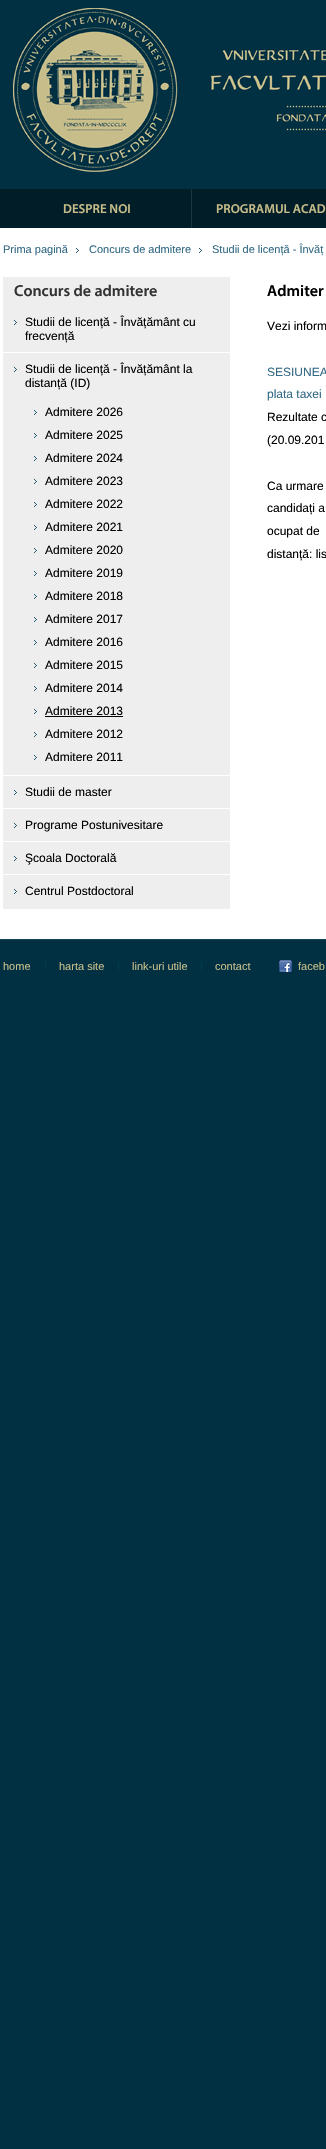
void draw(SkCanvas* canvas) {
	SkPaint fill;
	fill.setAntiAlias(true);
	auto makeFont = [&](const char* family, int weight, float size, bool italic = false) {
		SkFontStyle style(weight, SkFontStyle::kNormal_Width,
			italic ? SkFontStyle::kItalic_Slant : SkFontStyle::kUpright_Slant);
		SkFont result(fontMgr->matchFamilyStyle(family, style), size);
		result.setSubpixel(true);
		return result;
	};
	auto text = [&](const char* s, float x, float y, const SkFont& font) {
		canvas->drawString(s, x, y, font, fill);
	};
	auto box = [&](float l, float t, float r, float b) {
		canvas->drawRect(SkRect::MakeLTRB(l, t, r, b), fill);
	};
	auto picture = [&](const char* path, float l, float t, float r, float b) {
		auto image = SkImages::DeferredFromEncodedData(SkData::MakeFromFileName(path));
		canvas->drawImageRect(image, SkRect::MakeLTRB(l, t, r, b), SkSamplingOptions());
	};
	canvas->clear(0xFF003042);
	picture("image0.png", 13, 8, 326, 172);
	fill.setColor(0xFFFFFFFF);
	box(0, 228, 326, 939);
	fill.setColor(0xFF11445A);
	box(0, 939, 326, 940);
	fill.setColor(0xFF001D28);
	box(0, 189, 326, 228);
	fill.setColor(0xFF1A3642);
	box(191, 189, 192, 228);
	picture("image1.png", 76, 248, 79, 253);
	picture("image1.png", 199, 248, 202, 253);
	fill.setColor(0xFFEEEEEE);
	box(3, 277, 230, 909);
	picture("image2.png", 14, 320, 17, 325);
	fill.setColor(0xFFFFFFFF);
	box(3, 352, 230, 353);
	picture("image2.png", 14, 367, 17, 372);
	picture("image2.png", 34, 410, 37, 415);
	picture("image2.png", 34, 433, 37, 438);
	picture("image2.png", 34, 456, 37, 461);
	picture("image2.png", 34, 479, 37, 484);
	picture("image2.png", 34, 502, 37, 507);
	picture("image2.png", 34, 525, 37, 530);
	picture("image2.png", 34, 548, 37, 553);
	picture("image2.png", 34, 571, 37, 576);
	picture("image2.png", 34, 594, 37, 599);
	picture("image2.png", 34, 617, 37, 622);
	picture("image2.png", 34, 640, 37, 645);
	picture("image2.png", 34, 663, 37, 668);
	picture("image2.png", 34, 686, 37, 691);
	picture("image2.png", 34, 709, 37, 714);
	fill.setColor(0xFF000000);
	box(45, 716, 123, 717);
	picture("image2.png", 34, 732, 37, 737);
	picture("image2.png", 34, 755, 37, 760);
	fill.setColor(0xFFFFFFFF);
	box(3, 775, 230, 776);
	picture("image2.png", 14, 790, 17, 795);
	box(3, 808, 230, 809);
	picture("image2.png", 14, 823, 17, 828);
	box(3, 841, 230, 842);
	picture("image2.png", 14, 856, 17, 861);
	box(3, 874, 230, 875);
	picture("image2.png", 14, 889, 17, 894);
	fill.setColor(0xFF003D53);
	box(45, 962, 46, 970);
	box(118, 962, 119, 970);
	box(201, 962, 202, 970);
	picture("image3.png", 279, 960, 292, 972);
	auto font1 = makeFont("Myriad", 600, 13);
	fill.setColor(0xFFC7BD8A);
	text("DESPRE NOI", 63, 213, font1);
	text("PROGRAMUL ACAD", 216, 213, font1);
	auto font2 = makeFont("Liberation Sans", 400, 11);
	fill.setColor(0xFF336984);
	text("Prima pagină", 3, 253, font2);
	text("Concurs de admitere", 89, 253, font2);
	text("Studii de licență - Învăț", 212, 253, font2);
	auto font3 = makeFont("Myriad", 600, 16);
	fill.setColor(0xFF333333);
	text("Concurs de admitere", 14, 296, font3);
	auto font4 = makeFont("Liberation Sans", 400, 12);
	fill.setColor(0xFF000000);
	text("Studii de licență - Învățământ cu", 25, 326, font4);
	text("frecvență", 25, 340, font4);
	text("Studii de licență - Învățământ la", 25, 373, font4);
	text("distanță (ID)", 25, 387, font4);
	text("Admitere 2026", 45, 416, font4);
	text("Admitere 2025", 45, 439, font4);
	text("Admitere 2024", 45, 462, font4);
	text("Admitere 2023", 45, 485, font4);
	text("Admitere 2022", 45, 508, font4);
	text("Admitere 2021", 45, 531, font4);
	text("Admitere 2020", 45, 554, font4);
	text("Admitere 2019", 45, 577, font4);
	text("Admitere 2018", 45, 600, font4);
	text("Admitere 2017", 45, 623, font4);
	text("Admitere 2016", 45, 646, font4);
	text("Admitere 2015", 45, 669, font4);
	text("Admitere 2014", 45, 692, font4);
	text("Admitere 2013", 45, 715, font4);
	text("Admitere 2012", 45, 738, font4);
	text("Admitere 2011", 45, 761, font4);
	text("Studii de master", 25, 796, font4);
	text("Programe Postunivesitare", 25, 829, font4);
	text("Şcoala Doctorală", 25, 862, font4);
	text("Centrul Postdoctoral", 25, 895, font4);
	text("Admiter", 267, 296, font3);
	text("Vezi inform", 267, 330, font4);
	fill.setColor(0xFF336984);
	text("SESIUNEA", 267, 376, font4);
	text("plata taxei", 267, 398, font4);
	fill.setColor(0xFF000000);
	text("Rezultate c", 267, 421, font4);
	text("(20.09.201", 267, 444, font4);
	text("Ca urmare", 267, 490, font4);
	text("candidați a", 267, 512, font4);
	text("ocupat de", 267, 535, font4);
	text("distanță: lis", 267, 558, font4);
	fill.setColor(0xFFC7BD8A);
	text("home", 3, 970, font2);
	text("harta site", 59, 970, font2);
	text("link-uri utile", 132, 970, font2);
	text("contact", 215, 970, font2);
	text("faceb", 298, 970, font2);
}
